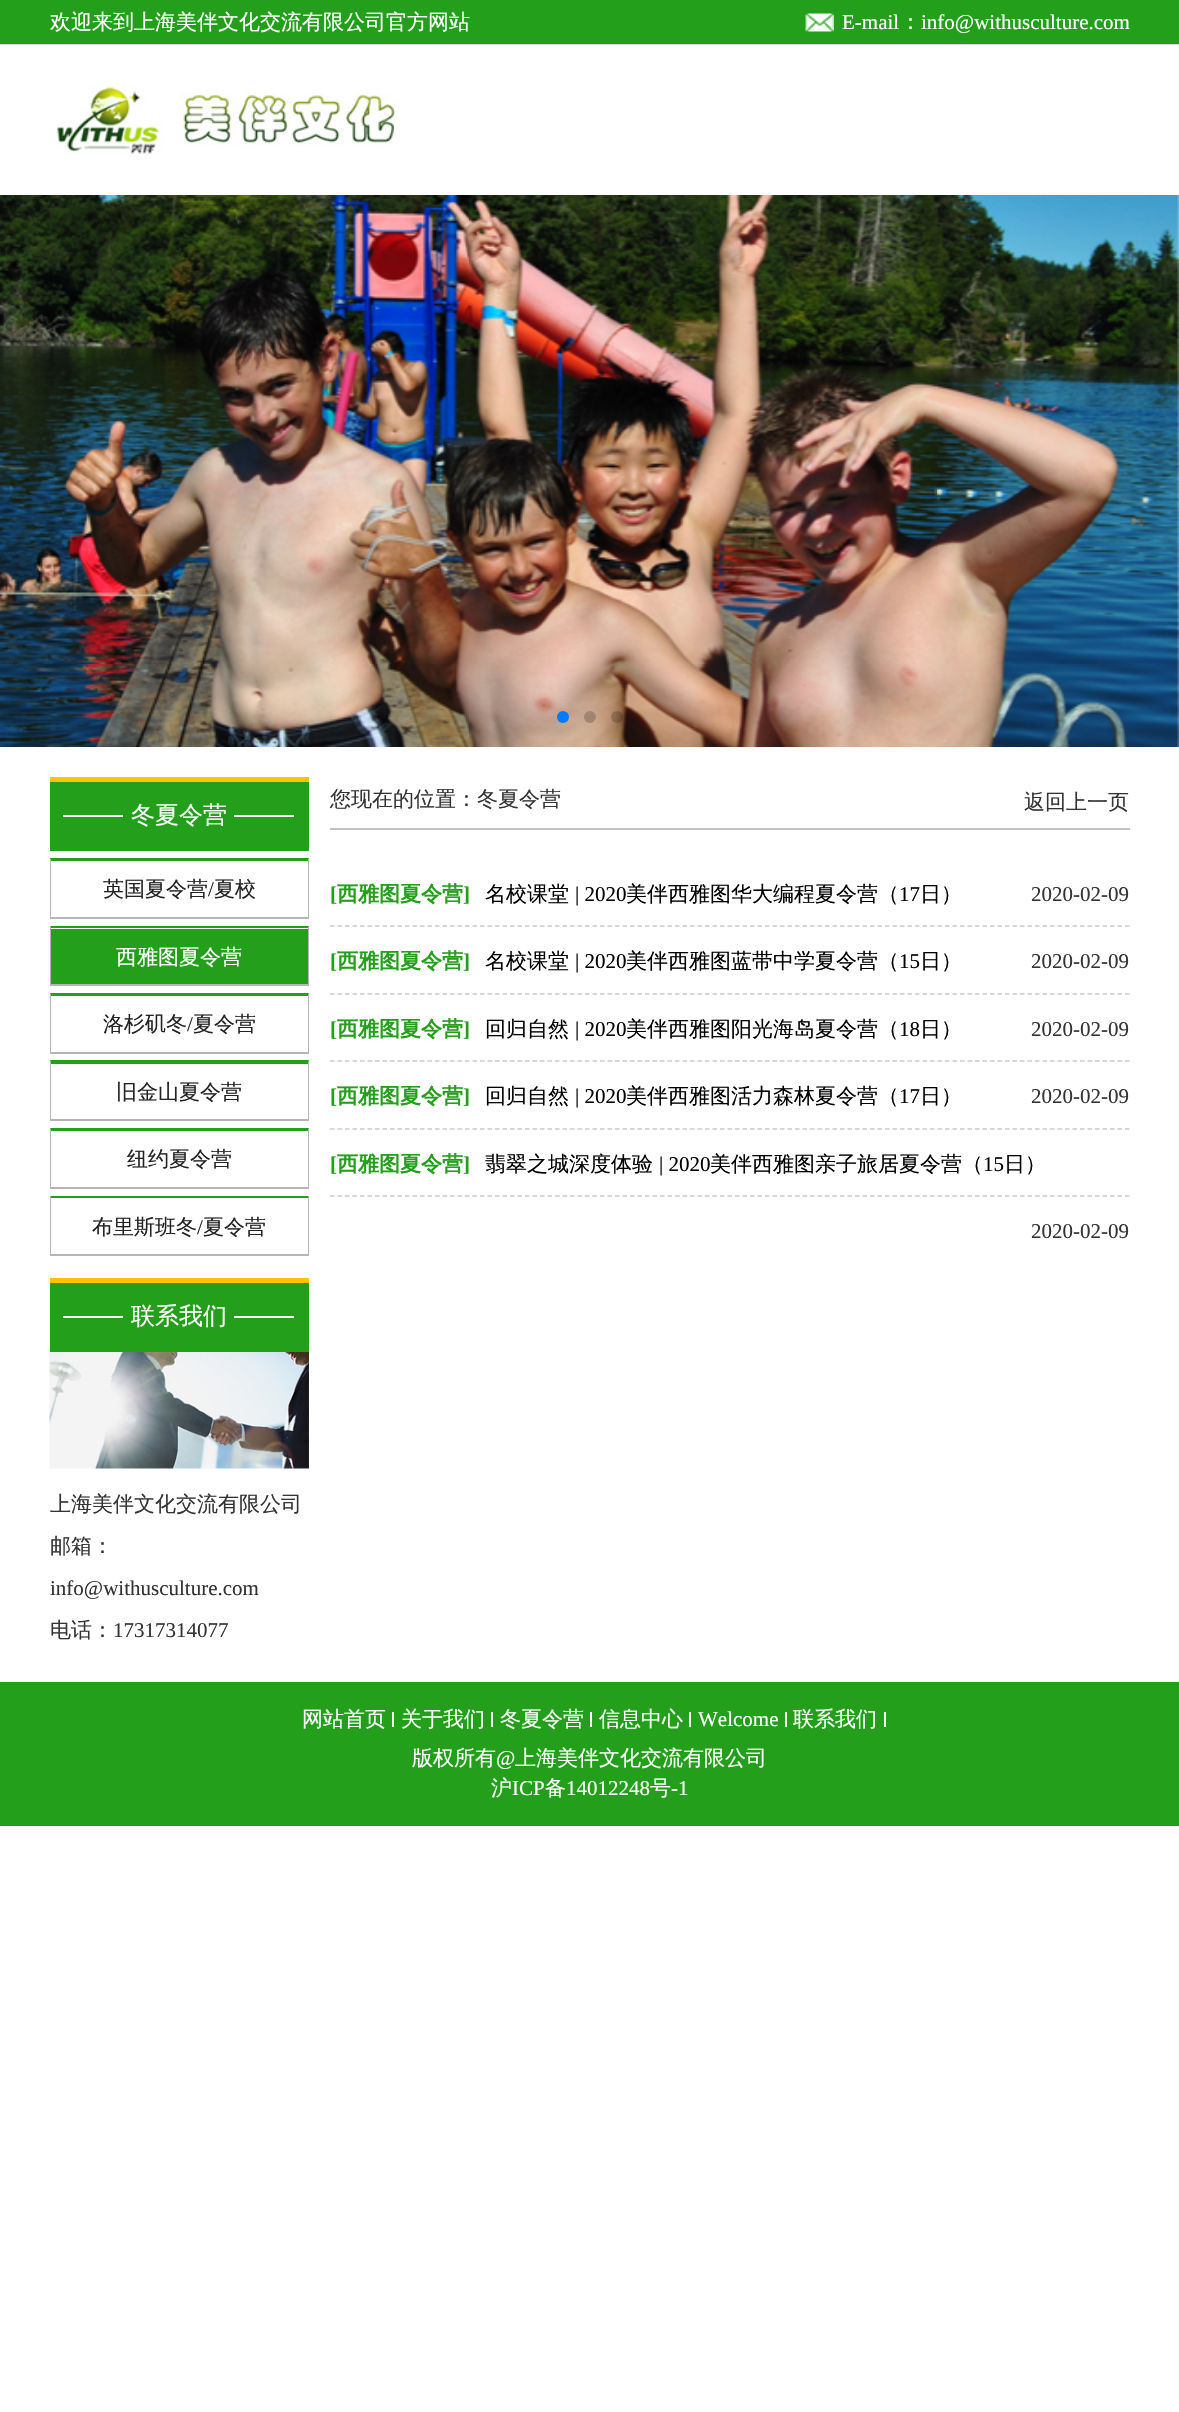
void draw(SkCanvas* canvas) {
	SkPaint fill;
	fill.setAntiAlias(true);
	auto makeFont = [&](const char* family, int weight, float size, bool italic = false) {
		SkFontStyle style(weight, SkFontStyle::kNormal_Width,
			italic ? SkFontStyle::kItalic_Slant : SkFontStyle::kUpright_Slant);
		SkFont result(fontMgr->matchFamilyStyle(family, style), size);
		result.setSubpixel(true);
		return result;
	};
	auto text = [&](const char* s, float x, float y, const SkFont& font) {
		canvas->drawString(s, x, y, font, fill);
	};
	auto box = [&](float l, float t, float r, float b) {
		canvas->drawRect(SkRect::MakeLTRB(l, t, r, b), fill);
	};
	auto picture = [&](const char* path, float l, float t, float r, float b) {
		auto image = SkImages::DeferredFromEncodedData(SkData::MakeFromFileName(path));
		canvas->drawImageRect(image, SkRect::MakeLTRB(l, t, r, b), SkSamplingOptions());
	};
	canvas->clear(0xFFFFFFFF);
	fill.setColor(0xFF249F1C);
	box(0, 0, 1179, 44);
	fill.setColor(0xFFD8D8D8);
	box(0, 44, 1179, 45);
	picture("image0.png", 805, 13, 834, 32);
	picture("image1.png", 57, 84, 397, 155);
	picture("image2.png", 0, 195, 1179, 747);
	fill.setColor(0xFF007AFF);
	canvas->drawCircle(563, 717, 6, fill);
	fill.setColor(0x33000000);
	canvas->drawCircle(590, 717, 6, fill);
	canvas->drawCircle(617, 717, 6, fill);
	fill.setColor(0xFF249F1C);
	box(50, 782, 309, 851);
	fill.setColor(0xFFFFC300);
	box(50, 777, 309, 782);
	fill.setColor(0xFFFFFFFF);
	box(63, 815, 123, 817);
	box(234, 815, 294, 817);
	fill.setColor(0xFF249F1C);
	canvas->drawPath(SkPathBuilder().moveTo(50, 858).lineTo(309, 858).lineTo(308, 861).lineTo(51, 861).close().detach(), fill);
	fill.setColor(0xFFB5B5B5);
	canvas->drawPath(SkPathBuilder().moveTo(309, 858).lineTo(309, 918).lineTo(308, 916).lineTo(308, 861).close().detach(), fill);
	box(50, 917, 309, 919);
	canvas->drawPath(SkPathBuilder().moveTo(50, 918).lineTo(50, 858).lineTo(51, 861).lineTo(51, 916).close().detach(), fill);
	fill.setColor(0xFF249F1C);
	box(51, 929, 308, 984);
	canvas->drawPath(SkPathBuilder().moveTo(50, 926).lineTo(309, 926).lineTo(308, 928).lineTo(51, 928).close().detach(), fill);
	fill.setColor(0xFFB5B5B5);
	canvas->drawPath(SkPathBuilder().moveTo(309, 926).lineTo(309, 986).lineTo(308, 984).lineTo(308, 928).close().detach(), fill);
	box(50, 984, 309, 986);
	canvas->drawPath(SkPathBuilder().moveTo(50, 986).lineTo(50, 926).lineTo(51, 928).lineTo(51, 984).close().detach(), fill);
	fill.setColor(0xFF249F1C);
	canvas->drawPath(SkPathBuilder().moveTo(50, 993).lineTo(309, 993).lineTo(308, 996).lineTo(51, 996).close().detach(), fill);
	fill.setColor(0xFFB5B5B5);
	canvas->drawPath(SkPathBuilder().moveTo(309, 993).lineTo(309, 1053).lineTo(308, 1052).lineTo(308, 996).close().detach(), fill);
	box(50, 1052, 309, 1054);
	canvas->drawPath(SkPathBuilder().moveTo(50, 1053).lineTo(50, 993).lineTo(51, 996).lineTo(51, 1052).close().detach(), fill);
	fill.setColor(0xFF249F1C);
	canvas->drawPath(SkPathBuilder().moveTo(50, 1060).lineTo(309, 1060).lineTo(308, 1064).lineTo(51, 1064).close().detach(), fill);
	fill.setColor(0xFFB5B5B5);
	canvas->drawPath(SkPathBuilder().moveTo(309, 1060).lineTo(309, 1120).lineTo(308, 1119).lineTo(308, 1064).close().detach(), fill);
	box(50, 1119, 309, 1121);
	canvas->drawPath(SkPathBuilder().moveTo(50, 1120).lineTo(50, 1060).lineTo(51, 1064).lineTo(51, 1119).close().detach(), fill);
	fill.setColor(0xFF249F1C);
	canvas->drawPath(SkPathBuilder().moveTo(50, 1128).lineTo(309, 1128).lineTo(308, 1131).lineTo(51, 1131).close().detach(), fill);
	fill.setColor(0xFFB5B5B5);
	canvas->drawPath(SkPathBuilder().moveTo(309, 1128).lineTo(309, 1188).lineTo(308, 1186).lineTo(308, 1131).close().detach(), fill);
	box(50, 1187, 309, 1189);
	canvas->drawPath(SkPathBuilder().moveTo(50, 1188).lineTo(50, 1128).lineTo(51, 1131).lineTo(51, 1186).close().detach(), fill);
	fill.setColor(0xFF249F1C);
	canvas->drawPath(SkPathBuilder().moveTo(50, 1196).lineTo(309, 1196).lineTo(308, 1198).lineTo(51, 1198).close().detach(), fill);
	fill.setColor(0xFFB5B5B5);
	canvas->drawPath(SkPathBuilder().moveTo(309, 1196).lineTo(309, 1256).lineTo(308, 1254).lineTo(308, 1198).close().detach(), fill);
	box(50, 1254, 309, 1256);
	canvas->drawPath(SkPathBuilder().moveTo(50, 1256).lineTo(50, 1196).lineTo(51, 1198).lineTo(51, 1254).close().detach(), fill);
	picture("image3.png", 49, 1351, 309, 1469);
	fill.setColor(0xFF249F1C);
	box(50, 1283, 309, 1352);
	fill.setColor(0xFFFFC300);
	box(50, 1278, 309, 1283);
	fill.setColor(0xFFFFFFFF);
	box(63, 1316, 123, 1318);
	box(234, 1316, 294, 1318);
	fill.setColor(0xFFC1C1C1);
	box(330, 828, 1130, 830);
	fill.setStyle(SkPaint::kStroke_Style);
	fill.setStrokeWidth(1.5f);
	fill.setColor(0xFFCCCCCC);
	fill.setPathEffect(SkDashPathEffect::Make({{4.5f, 3}}, 0));
	canvas->drawPath(SkPathBuilder().moveTo(330, 926).lineTo(1129.5f, 926).detach(), fill);
	fill.setPathEffect(nullptr);
	fill.setPathEffect(SkDashPathEffect::Make({{4.5f, 3}}, 0));
	canvas->drawPath(SkPathBuilder().moveTo(330, 994).lineTo(1129.5f, 994).detach(), fill);
	fill.setPathEffect(nullptr);
	fill.setPathEffect(SkDashPathEffect::Make({{4.5f, 3}}, 0));
	canvas->drawPath(SkPathBuilder().moveTo(330, 1061).lineTo(1129.5f, 1061).detach(), fill);
	fill.setPathEffect(nullptr);
	fill.setPathEffect(SkDashPathEffect::Make({{4.5f, 3}}, 0));
	canvas->drawPath(SkPathBuilder().moveTo(330, 1129).lineTo(1129.5f, 1129).detach(), fill);
	fill.setPathEffect(nullptr);
	fill.setPathEffect(SkDashPathEffect::Make({{4.5f, 3}}, 0));
	canvas->drawPath(SkPathBuilder().moveTo(330, 1196).lineTo(1129.5f, 1196).detach(), fill);
	fill.setPathEffect(nullptr);
	fill.setStyle(SkPaint::kFill_Style);
	fill.setColor(0xFF249F1C);
	box(0, 1682, 1179, 1826);
	fill.setColor(0xFFFFFFFF);
	box(392, 1712, 394, 1727);
	box(491, 1712, 493, 1727);
	box(590, 1712, 592, 1727);
	box(689, 1712, 691, 1727);
	box(785, 1712, 787, 1727);
	box(884, 1712, 886, 1727);
	auto font1 = makeFont("WenQuanYi Zen Hei", 500, 21);
	text("欢迎来到上海美伴文化交流有限公司官方网站", 50, 29, font1);
	auto font2 = makeFont("Liberation Serif", 400, 21);
	text("E-mail", 842, 29, font2);
	text("：", 900, 29, font1);
	text("info@withusculture.com", 921, 29, font2);
	auto font3 = makeFont("WenQuanYi Zen Hei", 500, 24);
	text("冬夏令营", 131, 823, font3);
	fill.setColor(0xFF222222);
	text("英国夏令营", 103, 896, font1);
	text("/", 208, 896, font2);
	text("夏校", 214, 896, font1);
	fill.setColor(0xFFFFFFFF);
	text("西雅图夏令营", 116, 964, font1);
	fill.setColor(0xFF222222);
	text("洛杉矶冬", 103, 1031, font1);
	text("/", 187, 1031, font2);
	text("夏令营", 193, 1031, font1);
	text("旧金山夏令营", 116, 1099, font1);
	text("纽约夏令营", 127, 1166, font1);
	text("布里斯班冬", 92, 1234, font1);
	text("/", 197, 1234, font2);
	text("夏令营", 203, 1234, font1);
	fill.setColor(0xFFFFFFFF);
	text("联系我们", 131, 1324, font3);
	fill.setColor(0xFF333333);
	text("上海美伴文化交流有限公司", 50, 1511, font1);
	text("邮箱：", 50, 1553, font1);
	text("info@withusculture.com", 50, 1595, font2);
	text("电话：", 50, 1637, font1);
	text("17317314077", 113, 1637, font2);
	text("您现在的位置：冬夏令营", 330, 806, font1);
	text("返回上一页", 1024, 809, font1);
	auto font4 = makeFont("Liberation Serif", 700, 21);
	fill.setColor(0xFF249F1C);
	text("[", 330, 901, font4);
	auto font5 = makeFont("WenQuanYi Zen Hei", 700, 21);
	text("西雅图夏令营", 337, 901, font5);
	text("]", 463, 901, font4);
	fill.setColor(0xFF000000);
	text("名校课堂", 485, 901, font1);
	text("| 2020", 575, 901, font2);
	text("美伴西雅图华大编程夏令营（", 626, 901, font1);
	text("17", 899, 901, font2);
	text("日）", 920, 901, font1);
	fill.setColor(0xFF333333);
	text("2020-02-09", 1031, 901, font2);
	fill.setColor(0xFF249F1C);
	text("[", 330, 968, font4);
	text("西雅图夏令营", 337, 968, font5);
	text("]", 463, 968, font4);
	fill.setColor(0xFF000000);
	text("名校课堂", 485, 968, font1);
	text("| 2020", 575, 968, font2);
	text("美伴西雅图蓝带中学夏令营（", 626, 968, font1);
	text("15", 899, 968, font2);
	text("日）", 920, 968, font1);
	fill.setColor(0xFF333333);
	text("2020-02-09", 1031, 968, font2);
	fill.setColor(0xFF249F1C);
	text("[", 330, 1036, font4);
	text("西雅图夏令营", 337, 1036, font5);
	text("]", 463, 1036, font4);
	fill.setColor(0xFF000000);
	text("回归自然", 485, 1036, font1);
	text("| 2020", 575, 1036, font2);
	text("美伴西雅图阳光海岛夏令营（", 626, 1036, font1);
	text("18", 899, 1036, font2);
	text("日）", 920, 1036, font1);
	fill.setColor(0xFF333333);
	text("2020-02-09", 1031, 1036, font2);
	fill.setColor(0xFF249F1C);
	text("[", 330, 1103, font4);
	text("西雅图夏令营", 337, 1103, font5);
	text("]", 463, 1103, font4);
	fill.setColor(0xFF000000);
	text("回归自然", 485, 1103, font1);
	text("| 2020", 575, 1103, font2);
	text("美伴西雅图活力森林夏令营（", 626, 1103, font1);
	text("17", 899, 1103, font2);
	text("日）", 920, 1103, font1);
	fill.setColor(0xFF333333);
	text("2020-02-09", 1031, 1103, font2);
	fill.setColor(0xFF249F1C);
	text("[", 330, 1171, font4);
	text("西雅图夏令营", 337, 1171, font5);
	text("]", 463, 1171, font4);
	fill.setColor(0xFF000000);
	text("翡翠之城深度体验", 485, 1171, font1);
	text("| 2020", 659, 1171, font2);
	text("美伴西雅图亲子旅居夏令营（", 710, 1171, font1);
	text("15", 983, 1171, font2);
	text("日）", 1004, 1171, font1);
	fill.setColor(0xFF333333);
	text("2020-02-09", 1031, 1238, font2);
	fill.setColor(0xFFFFFFFF);
	text("网站首页", 302, 1726, font1);
	text("关于我们", 401, 1726, font1);
	text("冬夏令营", 500, 1726, font1);
	text("信息中心", 599, 1726, font1);
	text("Welcome", 698, 1726, font2);
	text("联系我们", 793, 1726, font1);
	text("版权所有", 412, 1765, font1);
	text("@", 496, 1765, font2);
	text("上海美伴文化交流有限公司", 515, 1765, font1);
	text("沪", 491, 1795, font1);
	text("ICP", 512, 1795, font2);
	text("备", 545, 1795, font1);
	text("14012248", 566, 1795, font2);
	text("号", 650, 1795, font1);
	text("-1", 671, 1795, font2);
}
